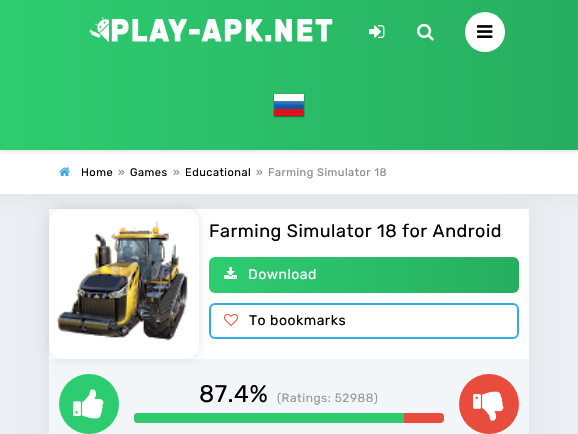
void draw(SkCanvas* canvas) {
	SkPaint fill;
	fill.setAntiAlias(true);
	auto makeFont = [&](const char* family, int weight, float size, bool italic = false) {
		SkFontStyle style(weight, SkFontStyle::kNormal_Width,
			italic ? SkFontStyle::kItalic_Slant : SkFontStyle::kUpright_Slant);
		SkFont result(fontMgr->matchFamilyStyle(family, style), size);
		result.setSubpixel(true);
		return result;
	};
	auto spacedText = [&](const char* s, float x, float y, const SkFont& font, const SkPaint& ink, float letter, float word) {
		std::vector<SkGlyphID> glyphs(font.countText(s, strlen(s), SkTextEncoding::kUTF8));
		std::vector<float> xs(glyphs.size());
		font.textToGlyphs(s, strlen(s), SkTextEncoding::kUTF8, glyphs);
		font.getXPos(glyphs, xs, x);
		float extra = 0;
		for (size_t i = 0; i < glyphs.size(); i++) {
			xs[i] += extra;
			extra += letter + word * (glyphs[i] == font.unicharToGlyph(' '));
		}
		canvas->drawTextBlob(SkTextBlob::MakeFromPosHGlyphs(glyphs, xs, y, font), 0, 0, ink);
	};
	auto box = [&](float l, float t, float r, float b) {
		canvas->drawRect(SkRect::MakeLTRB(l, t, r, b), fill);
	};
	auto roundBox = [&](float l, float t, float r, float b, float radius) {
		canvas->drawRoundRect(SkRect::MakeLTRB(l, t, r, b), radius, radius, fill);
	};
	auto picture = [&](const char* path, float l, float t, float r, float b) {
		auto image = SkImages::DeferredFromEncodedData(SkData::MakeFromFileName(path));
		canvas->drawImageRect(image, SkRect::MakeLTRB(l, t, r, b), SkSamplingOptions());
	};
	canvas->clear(0xFFEBEFF3);
	fill.setColor(0x0D000000);
	fill.setMaskFilter(SkMaskFilter::MakeBlur(kNormal_SkBlurStyle, 10));
	canvas->drawRect(SkRect::MakeLTRB(49, 209, 529, 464), fill);
	fill.setMaskFilter(nullptr);
	fill.setColor(0xFFFFFFFF);
	box(49, 209, 529, 359);
	fill.setColor(0x0D000000);
	fill.setMaskFilter(SkMaskFilter::MakeBlur(kNormal_SkBlurStyle, 10));
	canvas->drawRect(SkRect::MakeLTRB(-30, 150, 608, 194), fill);
	fill.setMaskFilter(nullptr);
	fill.setColor(0xFFFFFFFF);
	box(0, 150, 578, 194);
	fill.setColor(0x33000000);
	fill.setMaskFilter(SkMaskFilter::MakeBlur(kNormal_SkBlurStyle, 2.5f));
	canvas->drawRect(SkRect::MakeLTRB(0, 0, 578, 150), fill);
	fill.setMaskFilter(nullptr);
	{
		const SkColor colors[] = {0xFF2ECC71, 0xFF27AE60};
		const float stops[] = {0, 1};
		const SkPoint ends[] = {{0, 75}, {578, 75}};
		fill.setShader(SkGradientShader::MakeLinear(ends, colors, stops, 2, SkTileMode::kClamp));
		fill.setAlpha(255);
	}
	box(0, 0, 578, 150);
	picture("image0.png", 89, 17, 333, 42);
	picture("image1.png", 369, 25, 385, 38);
	picture("image2.png", 417, 23, 434, 41);
	fill.setShader(nullptr);
	fill.setColor(0xFFFFFFFF);
	canvas->drawCircle(485, 32, 20, fill);
	picture("image3.png", 477, 25, 493, 38);
	picture("image4.png", 273, 93, 305, 118);
	picture("image5.png", 59, 167, 70, 176);
	{
		const SkColor colors[] = {0xFF2ECC71, 0xFF27AE60};
		const float stops[] = {0, 1};
		const SkPoint ends[] = {{209, 275}, {519, 275}};
		fill.setShader(SkGradientShader::MakeLinear(ends, colors, stops, 2, SkTileMode::kClamp));
		fill.setAlpha(255);
	}
	roundBox(209, 257, 519, 293, 6);
	fill.setStyle(SkPaint::kStroke_Style);
	fill.setStrokeWidth(2);
	fill.setShader(nullptr);
	fill.setColor(0xFF34ACE0);
	canvas->drawRoundRect(SkRect::MakeLTRB(210, 304, 518, 338), 5, 5, fill);
	fill.setStyle(SkPaint::kFill_Style);
	fill.setColor(0xFFF2F6F8);
	box(49, 359, 529, 434);
	fill.setColor(0x1A000000);
	fill.setMaskFilter(SkMaskFilter::MakeBlur(kNormal_SkBlurStyle, 5));
	canvas->drawRoundRect(SkRect::MakeLTRB(49, 209, 199, 359), 14, 14, fill);
	fill.setMaskFilter(nullptr);
	fill.setColor(0xFFFFFFFF);
	canvas->drawRoundRect(SkRect::MakeLTRB(51.5f, 211.5f, 196.5f, 356.5f), 11.5f, 11.5f, fill);
	fill.setStyle(SkPaint::kStroke_Style);
	fill.setStrokeWidth(5);
	canvas->drawRoundRect(SkRect::MakeLTRB(51.5f, 211.5f, 196.5f, 356.5f), 11.5f, 11.5f, fill);
	picture("image6.png", 55, 220, 188, 341);
	picture("image7.png", 224, 267, 237, 279);
	picture("image8.png", 224, 314, 238, 326);
	fill.setStyle(SkPaint::kFill_Style);
	fill.setColor(0xFF2ECC71);
	canvas->drawCircle(89, 404, 30, fill);
	picture("image9.png", 73, 389, 104, 419);
	fill.setColor(0xFFE74C3C);
	roundBox(134, 413, 444, 423, 4);
	fill.setColor(0xFF2ECC71);
	canvas->drawPath(SkPathBuilder().moveTo(138, 413).lineTo(404, 413).lineTo(404, 423).lineTo(138, 423).cubicTo(136, 423, 134, 421, 134, 419).lineTo(134, 417).cubicTo(134, 415, 136, 413, 138, 413).close().detach(), fill);
	fill.setColor(0xFFE74C3C);
	canvas->drawCircle(489, 404, 30, fill);
	picture("image10.png", 473, 391, 504, 421);
	auto font1 = makeFont("Rubik", 400, 11);
	fill.setColor(0xFF000000);
	spacedText("Home", 81, 176, font1, fill, 0.5f, 0);
	fill.setColor(0xFF888888);
	spacedText("»", 118, 176, font1, fill, 0.5f, 0);
	fill.setColor(0xFF000000);
	spacedText("Games", 130, 176, font1, fill, 0.5f, 0);
	fill.setColor(0xFF888888);
	spacedText("»", 173, 176, font1, fill, 0.5f, 0);
	fill.setColor(0xFF000000);
	spacedText("Educational", 185, 176, font1, fill, 0.5f, 0);
	fill.setColor(0xFF888888);
	spacedText("»", 256, 176, font1, fill, 0.5f, 0);
	spacedText("Farming Simulator 18", 268, 176, font1, fill, 0.5f, 0);
	auto font2 = makeFont("Rubik", 400, 18);
	fill.setColor(0xFF000000);
	spacedText("Farming Simulator 18 for Android", 209, 237, font2, fill, 0.5f, 0);
	auto font3 = makeFont("Rubik", 400, 14);
	fill.setColor(0xFFFFFFFF);
	spacedText("Download", 248, 279, font3, fill, 0.5f, 0);
	fill.setColor(0xFF000000);
	spacedText("To bookmarks", 249, 325, font3, fill, 0.5f, 0);
	auto font4 = makeFont("Rubik", 400, 24);
	spacedText("87.4%", 199, 402, font4, fill, 0.5f, 0);
	auto font5 = makeFont("Rubik", 400, 12);
	fill.setColor(0xFF999999);
	spacedText("(Ratings: 52988)", 277, 402, font5, fill, 0.5f, 0);
}
